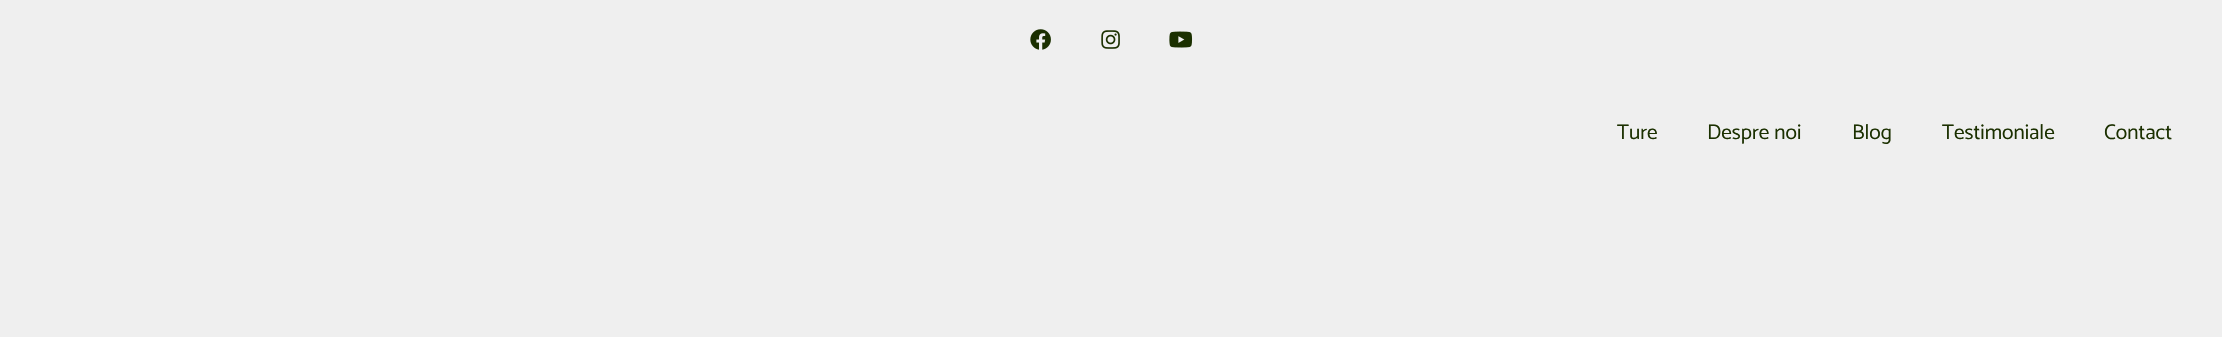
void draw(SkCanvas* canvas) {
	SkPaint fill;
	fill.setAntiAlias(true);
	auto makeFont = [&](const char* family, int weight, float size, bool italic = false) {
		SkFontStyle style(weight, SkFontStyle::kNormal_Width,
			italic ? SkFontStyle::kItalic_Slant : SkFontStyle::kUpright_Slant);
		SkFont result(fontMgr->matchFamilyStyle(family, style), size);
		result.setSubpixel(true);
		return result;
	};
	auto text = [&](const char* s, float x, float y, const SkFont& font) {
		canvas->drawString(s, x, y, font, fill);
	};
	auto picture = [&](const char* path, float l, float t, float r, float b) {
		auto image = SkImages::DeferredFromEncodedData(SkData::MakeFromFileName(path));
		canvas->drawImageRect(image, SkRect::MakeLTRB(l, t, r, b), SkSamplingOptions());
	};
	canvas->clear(0xFFEFEFEF);
	picture("image0.png", 1030, 29, 1051, 50);
	picture("image1.png", 1101, 30, 1120, 49);
	picture("image2.png", 1169, 31, 1193, 48);
	auto font1 = makeFont("Catamaran", 400, 21.25f);
	fill.setColor(0xFF1B3000);
	text("Ture", 1617, 139, font1);
	text("Despre noi", 1707, 139, font1);
	text("Blog", 1852, 139, font1);
	text("Testimoniale", 1942, 139, font1);
	text("Contact", 2104, 139, font1);
}
